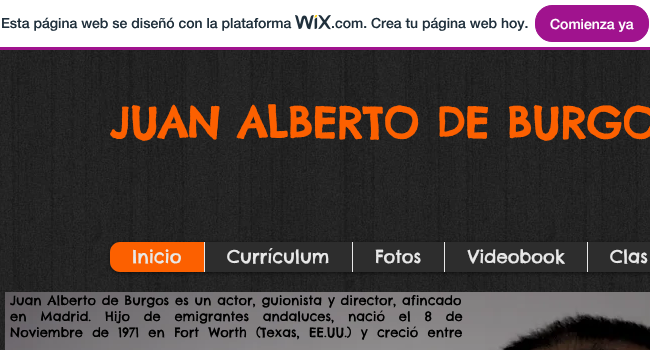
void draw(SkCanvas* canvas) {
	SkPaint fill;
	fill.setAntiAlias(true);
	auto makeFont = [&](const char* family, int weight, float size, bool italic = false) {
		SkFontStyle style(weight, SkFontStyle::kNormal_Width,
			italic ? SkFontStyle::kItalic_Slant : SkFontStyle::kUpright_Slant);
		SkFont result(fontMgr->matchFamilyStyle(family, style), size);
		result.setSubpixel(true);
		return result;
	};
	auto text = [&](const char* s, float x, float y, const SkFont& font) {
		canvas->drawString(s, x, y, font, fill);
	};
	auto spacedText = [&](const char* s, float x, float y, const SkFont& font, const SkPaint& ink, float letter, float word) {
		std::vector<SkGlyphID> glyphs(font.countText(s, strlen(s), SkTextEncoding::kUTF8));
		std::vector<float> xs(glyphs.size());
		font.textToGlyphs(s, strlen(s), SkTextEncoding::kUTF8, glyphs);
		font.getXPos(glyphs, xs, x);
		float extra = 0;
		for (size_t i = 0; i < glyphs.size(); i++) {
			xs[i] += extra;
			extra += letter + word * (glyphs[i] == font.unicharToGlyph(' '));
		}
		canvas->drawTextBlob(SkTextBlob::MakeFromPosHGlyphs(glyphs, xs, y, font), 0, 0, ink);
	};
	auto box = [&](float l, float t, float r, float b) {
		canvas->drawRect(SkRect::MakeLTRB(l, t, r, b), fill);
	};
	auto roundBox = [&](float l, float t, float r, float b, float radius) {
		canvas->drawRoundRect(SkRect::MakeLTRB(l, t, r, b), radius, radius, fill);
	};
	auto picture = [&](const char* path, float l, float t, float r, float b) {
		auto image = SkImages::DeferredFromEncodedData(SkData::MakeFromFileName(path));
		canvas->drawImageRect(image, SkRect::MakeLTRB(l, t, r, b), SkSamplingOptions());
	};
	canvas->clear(0xFFFFFFFF);
	fill.setColor(0xFFA0138E);
	box(0, 47, 650, 50);
	picture("image0.png", 295, 15, 331, 30);
	canvas->drawRoundRect(SkRect::MakeLTRB(535.5f, 5.5f, 648.5f, 41.5f), 16.5f, 16.5f, fill);
	fill.setStyle(SkPaint::kStroke_Style);
	fill.setStrokeWidth(1);
	canvas->drawRoundRect(SkRect::MakeLTRB(535.5f, 5.5f, 648.5f, 41.5f), 16.5f, 16.5f, fill);
	picture("image1.png", 0, 50, 650, 350);
	fill.setStyle(SkPaint::kFill_Style);
	fill.setColor(0x99000000);
	fill.setMaskFilter(SkMaskFilter::MakeBlur(kNormal_SkBlurStyle, 2));
	canvas->drawRoundRect(SkRect::MakeLTRB(110, 243, 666, 273), 10, 10, fill);
	fill.setMaskFilter(nullptr);
	fill.setColor(0xFF2D2D2D);
	roundBox(110, 242, 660, 272, 10);
	fill.setColor(0xFFFC6000);
	canvas->drawPath(SkPathBuilder().moveTo(120, 242).lineTo(204, 242).lineTo(204, 272).lineTo(120, 272).cubicTo(114.5f, 272, 110, 267.5f, 110, 262).lineTo(110, 252).cubicTo(110, 246.5f, 114.5f, 242, 120, 242).close().detach(), fill);
	fill.setColor(0xFFE8E8E8);
	box(204, 242, 205, 272);
	box(352, 242, 353, 272);
	box(444, 242, 445, 272);
	box(587, 242, 588, 272);
	picture("image2.png", 5, 292, 650, 350);
	auto font1 = makeFont("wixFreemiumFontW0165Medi", 500, 14);
	fill.setColor(0xFF20303C);
	text("Esta página web se diseñó con la plataforma", 1, 28, font1);
	text(".com. Crea tu página web hoy.", 331, 28, font1);
	fill.setColor(0xFFFFFFFF);
	text("Comienza ya", 550, 29, font1);
	auto font2 = makeFont("Chelsea Market", 700, 42);
	fill.setColor(0xFFFC6000);
	text("JUAN ALBERTO DE BURGO", 110, 138, font2);
	auto font3 = makeFont("Chelsea Market", 400, 18);
	fill.setColor(0xFFE8E8E8);
	text("Inicio", 132, 263, font3);
	text("Currículum", 227, 263, font3);
	text("Fotos", 375, 263, font3);
	text("Videobook", 468, 263, font3);
	text("Clas", 610, 263, font3);
	auto font4 = makeFont("Chelsea Market", 400, 13);
	fill.setColor(0xFF000000);
	spacedText("Juan Alberto de Burgos es un actor, guionista y director, afincado", 10, 305, font4, fill, 0, 0.5f);
	spacedText("en Madrid. Hijo de emigrantes andaluces, nació el 8 de", 10, 321, font4, fill, 0, 8.5f);
	spacedText("Noviembre de 1971 en Fort Worth (Texas, EE.UU.) y creció entre", 10, 337, font4, fill, 0, 4);
}
